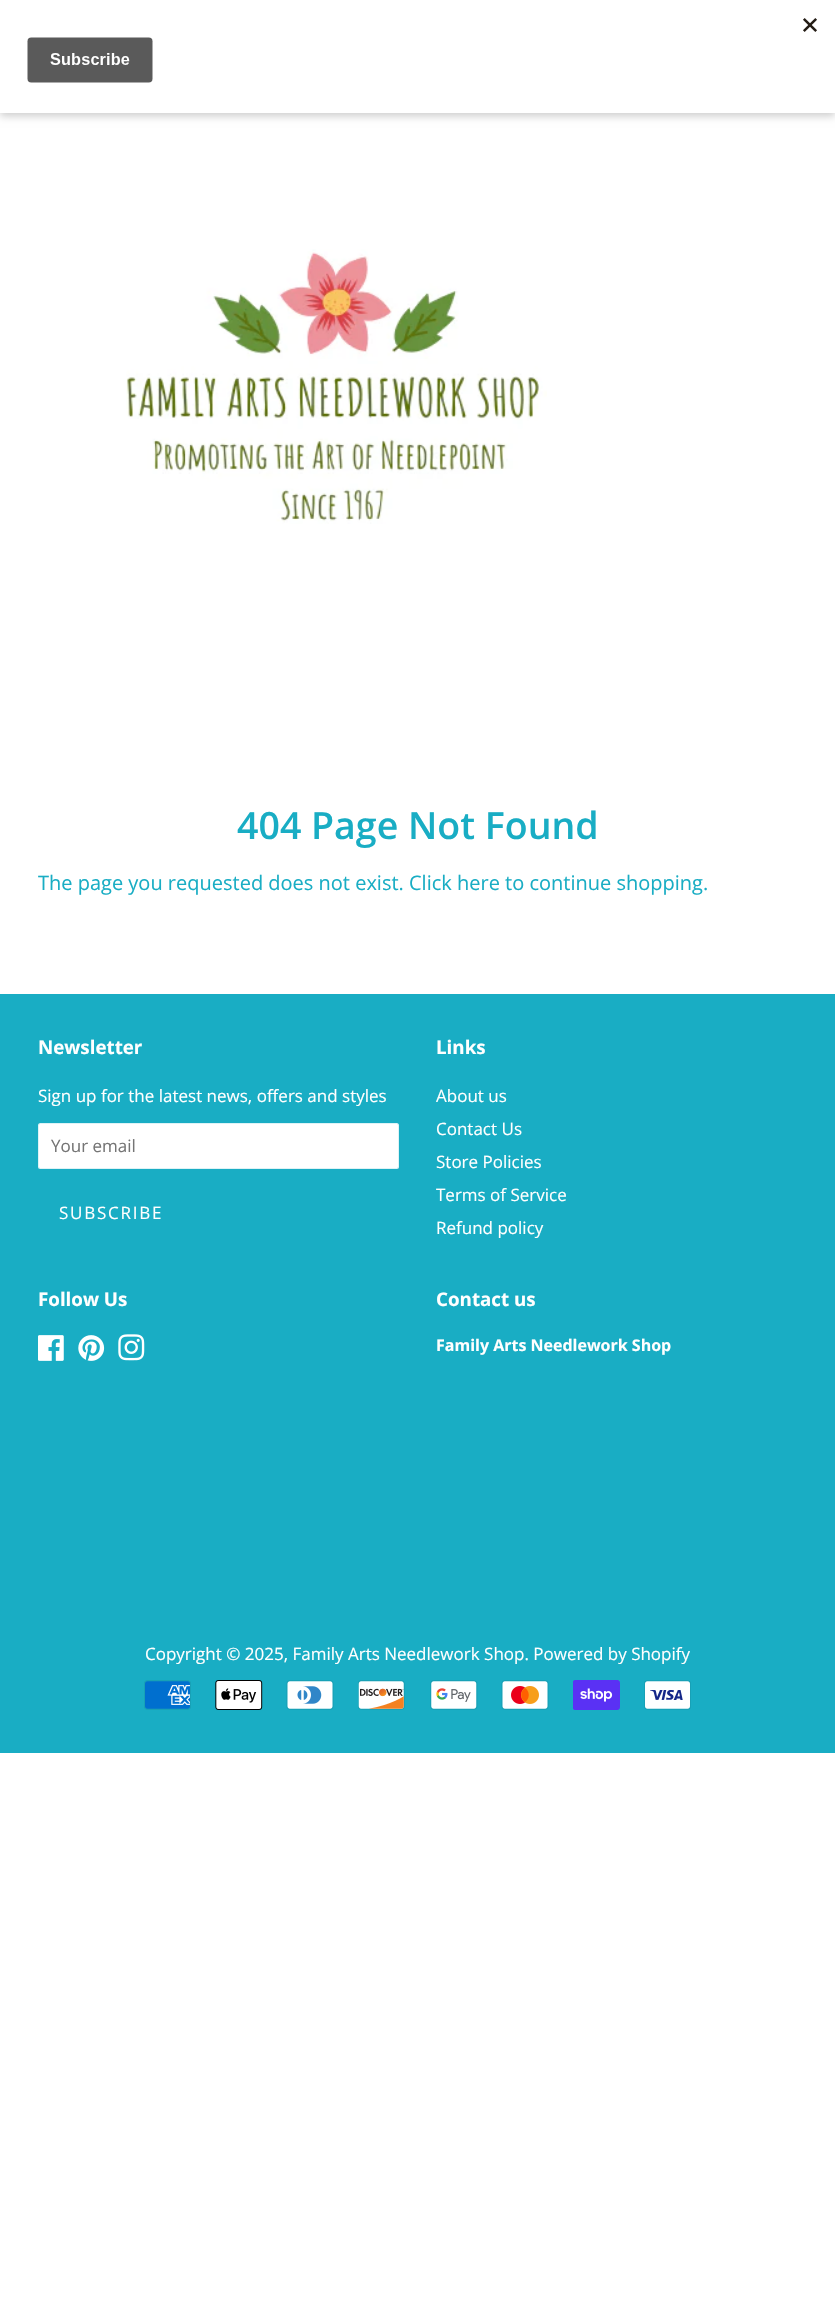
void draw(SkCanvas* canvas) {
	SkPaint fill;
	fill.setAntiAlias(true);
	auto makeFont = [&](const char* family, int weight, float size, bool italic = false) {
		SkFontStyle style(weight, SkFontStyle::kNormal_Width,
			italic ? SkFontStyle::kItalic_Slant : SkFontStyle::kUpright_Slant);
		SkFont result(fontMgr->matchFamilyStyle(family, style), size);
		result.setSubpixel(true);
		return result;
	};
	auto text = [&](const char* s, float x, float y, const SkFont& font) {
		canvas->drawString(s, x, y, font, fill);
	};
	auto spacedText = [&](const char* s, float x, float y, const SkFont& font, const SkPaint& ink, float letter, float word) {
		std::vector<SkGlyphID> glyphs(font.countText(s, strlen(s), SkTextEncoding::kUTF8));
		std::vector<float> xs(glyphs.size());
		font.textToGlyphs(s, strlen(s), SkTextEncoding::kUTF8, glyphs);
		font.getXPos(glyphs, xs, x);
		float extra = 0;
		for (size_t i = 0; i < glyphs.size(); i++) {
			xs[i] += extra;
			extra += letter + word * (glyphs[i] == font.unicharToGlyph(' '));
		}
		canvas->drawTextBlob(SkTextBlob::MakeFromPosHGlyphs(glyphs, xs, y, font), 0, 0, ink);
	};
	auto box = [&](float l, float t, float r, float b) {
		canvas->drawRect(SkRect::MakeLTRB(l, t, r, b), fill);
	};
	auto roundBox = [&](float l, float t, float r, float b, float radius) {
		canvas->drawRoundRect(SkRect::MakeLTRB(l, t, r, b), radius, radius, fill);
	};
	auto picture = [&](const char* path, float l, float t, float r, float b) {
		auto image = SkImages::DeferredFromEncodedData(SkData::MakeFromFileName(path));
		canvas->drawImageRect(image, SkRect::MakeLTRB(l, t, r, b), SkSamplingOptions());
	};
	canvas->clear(0xFFFFFFFF);
	fill.setColor(0x33000000);
	fill.setMaskFilter(SkMaskFilter::MakeBlur(kNormal_SkBlurStyle, 4));
	canvas->drawRect(SkRect::MakeLTRB(0, 4, 835, 116), fill);
	fill.setMaskFilter(nullptr);
	fill.setColor(0xFFFFFFFF);
	box(0, 0, 835, 113);
	picture("image0.png", 27, 18, 817, 83);
	picture("image1.png", 126, 249, 547, 524);
	fill.setColor(0xFF19ADC4);
	box(0, 994, 835, 1753);
	fill.setColor(0xFFFFFFFF);
	roundBox(38, 1123, 399, 1169, 2.5f);
	fill.setStyle(SkPaint::kStroke_Style);
	fill.setStrokeWidth(1);
	fill.setColor(0x2619ADC4);
	canvas->drawRoundRect(SkRect::MakeLTRB(38.5f, 1123.5f, 398.5f, 1168.5f), 2, 2, fill);
	picture("image2.png", 38, 1335, 64, 1361);
	picture("image3.png", 78, 1335, 105, 1361);
	picture("image4.png", 118, 1334, 145, 1361);
	picture("image5.png", 144, 1680, 191, 1710);
	picture("image6.png", 215, 1680, 263, 1710);
	picture("image7.png", 286, 1680, 334, 1710);
	picture("image8.png", 358, 1680, 405, 1710);
	picture("image9.png", 430, 1680, 478, 1710);
	picture("image10.png", 501, 1680, 549, 1710);
	picture("image11.png", 573, 1680, 620, 1710);
	picture("image12.png", 644, 1680, 691, 1710);
	auto font1 = makeFont("Open Sans", 600, 37.5f);
	fill.setStyle(SkPaint::kFill_Style);
	fill.setColor(0xFF19ADC4);
	text("404 Page Not Found", 237, 839, font1);
	auto font2 = makeFont("Open Sans", 400, 20);
	text("The page you requested does not exist. Click here to continue shopping.", 38, 890, font2);
	auto font3 = makeFont("Open Sans", 700, 18.75f);
	fill.setColor(0xFFFFFFFF);
	text("Newsletter", 38, 1054, font3);
	auto font4 = makeFont("Open Sans", 400, 17);
	text("Sign up for the latest news, offers and styles", 38, 1102, font4);
	fill.setColor(0xFF757575);
	text("Your email", 51, 1152, font4);
	fill.setColor(0xFFFFFFFF);
	spacedText("SUBSCRIBE", 59, 1219, font4, fill, 1.75f, 0);
	text("Links", 436, 1054, font3);
	text("About us", 436, 1102, font4);
	text("Contact Us", 436, 1135, font4);
	text("Store Policies", 436, 1168, font4);
	text("Terms of Service", 436, 1201, font4);
	text("Refund policy", 436, 1234, font4);
	text("Follow Us", 38, 1306, font3);
	text("Contact us", 436, 1306, font3);
	auto font5 = makeFont("Open Sans", 700, 16);
	text("Family Arts Needlework Shop", 436, 1351, font5);
	text("Copyright © 2025, Family Arts Needlework Shop. Powered by Shopify", 145, 1660, font4);
}
